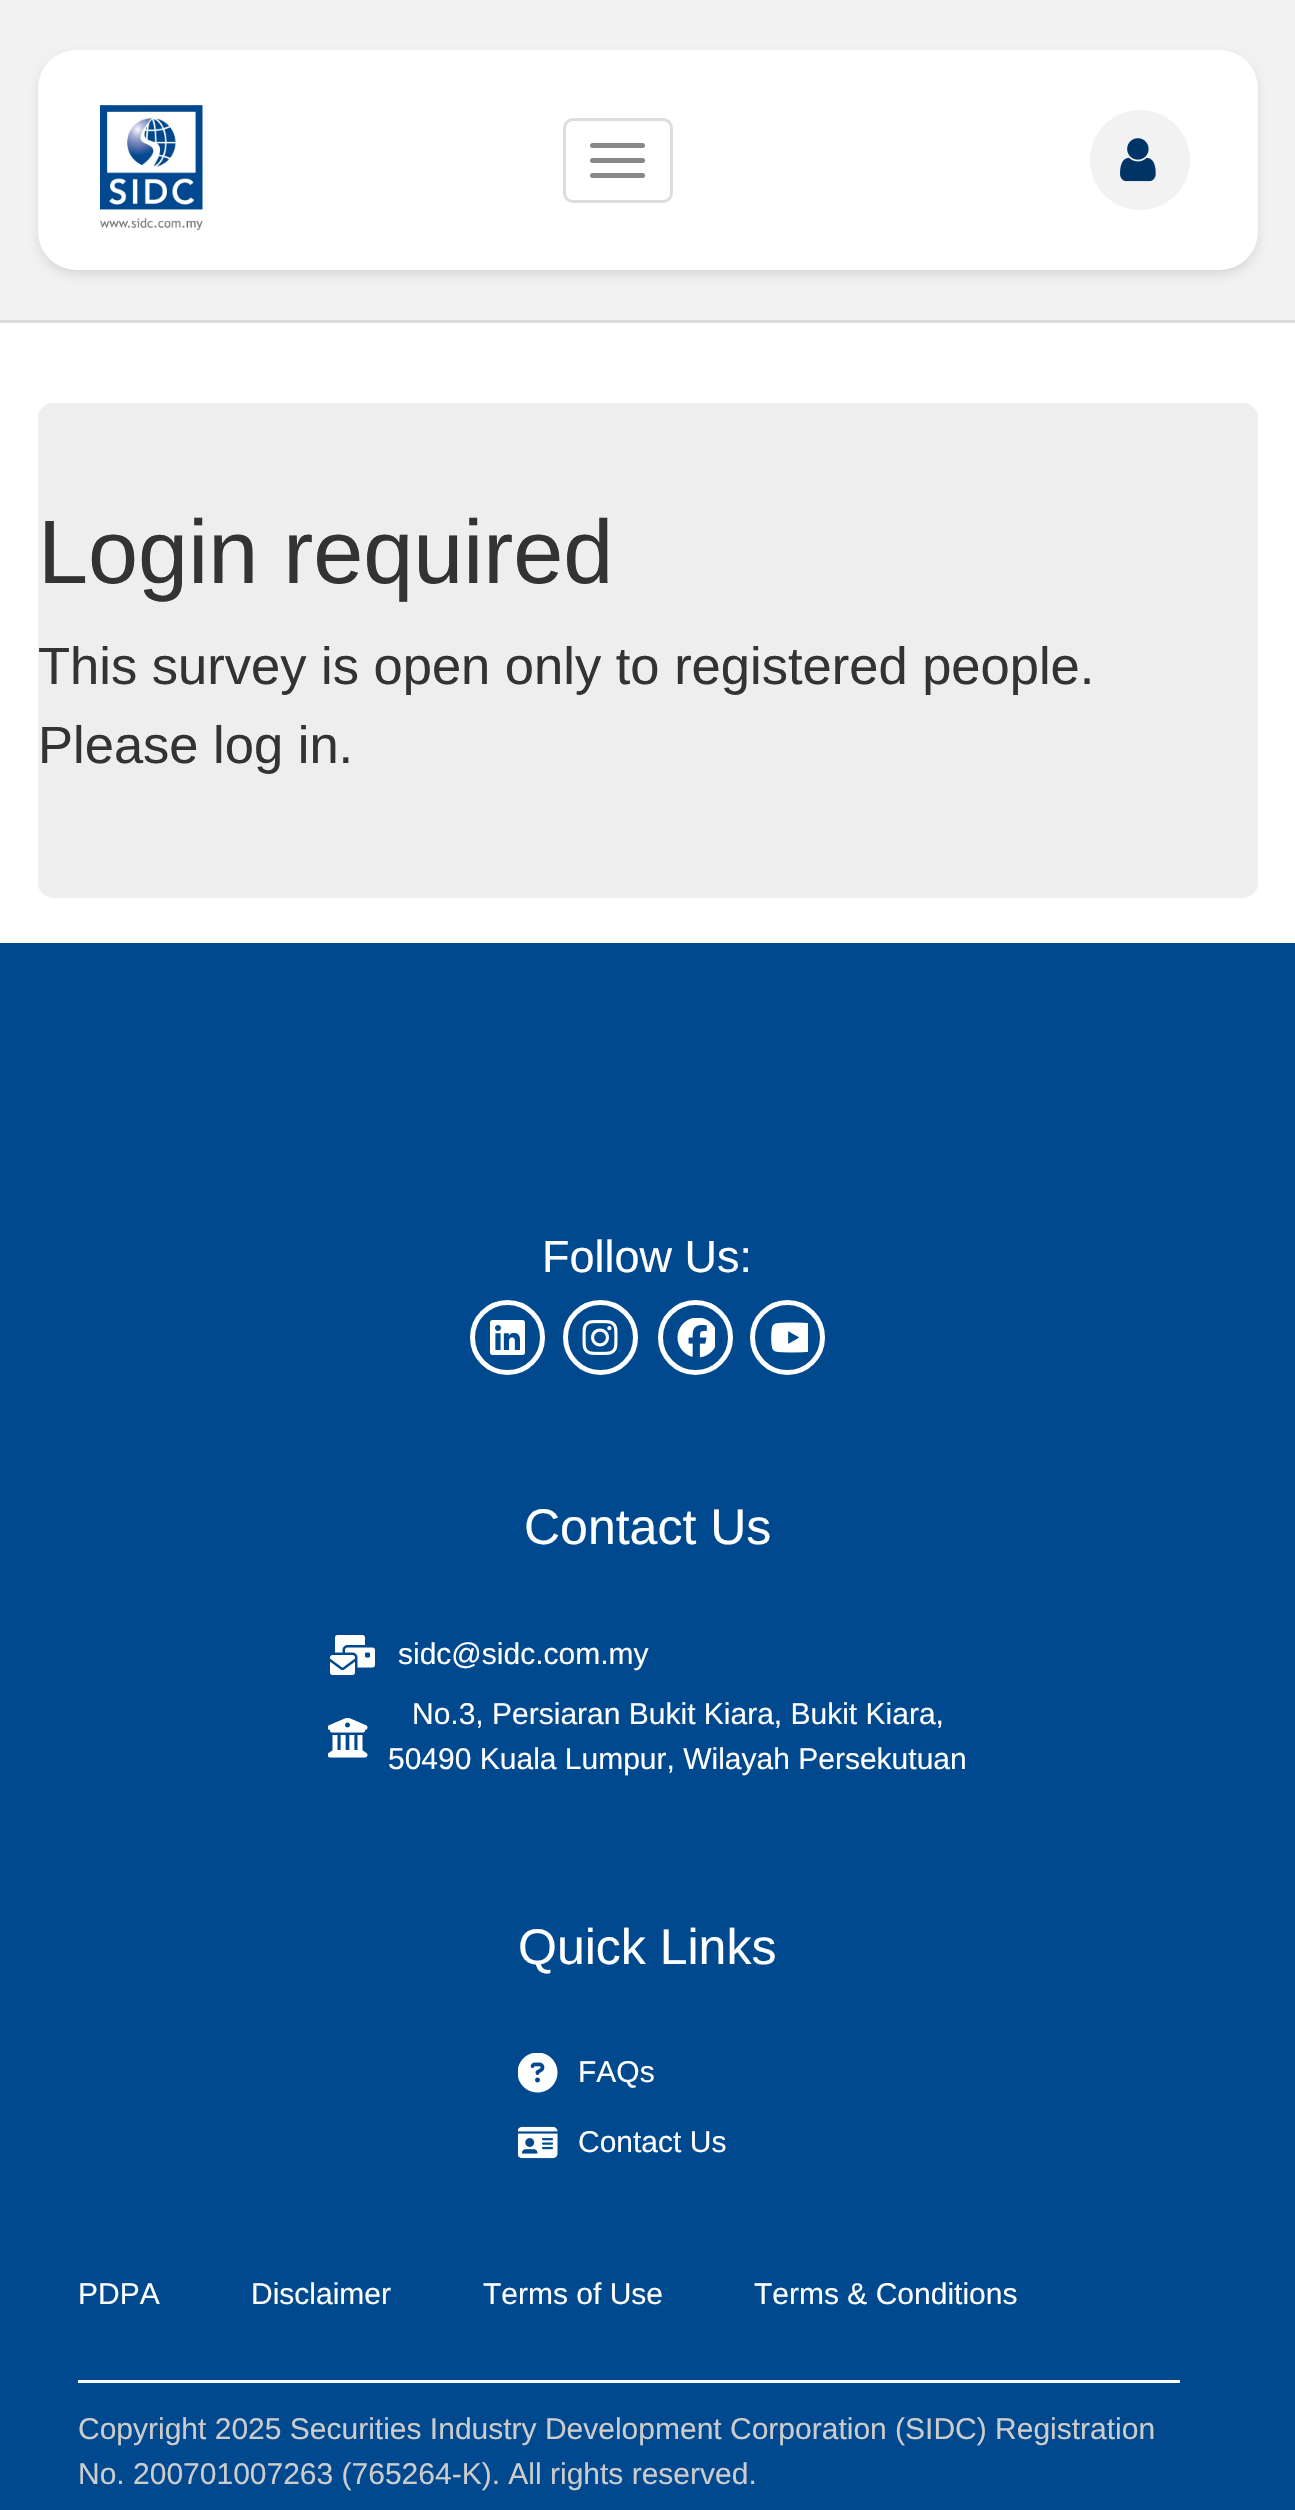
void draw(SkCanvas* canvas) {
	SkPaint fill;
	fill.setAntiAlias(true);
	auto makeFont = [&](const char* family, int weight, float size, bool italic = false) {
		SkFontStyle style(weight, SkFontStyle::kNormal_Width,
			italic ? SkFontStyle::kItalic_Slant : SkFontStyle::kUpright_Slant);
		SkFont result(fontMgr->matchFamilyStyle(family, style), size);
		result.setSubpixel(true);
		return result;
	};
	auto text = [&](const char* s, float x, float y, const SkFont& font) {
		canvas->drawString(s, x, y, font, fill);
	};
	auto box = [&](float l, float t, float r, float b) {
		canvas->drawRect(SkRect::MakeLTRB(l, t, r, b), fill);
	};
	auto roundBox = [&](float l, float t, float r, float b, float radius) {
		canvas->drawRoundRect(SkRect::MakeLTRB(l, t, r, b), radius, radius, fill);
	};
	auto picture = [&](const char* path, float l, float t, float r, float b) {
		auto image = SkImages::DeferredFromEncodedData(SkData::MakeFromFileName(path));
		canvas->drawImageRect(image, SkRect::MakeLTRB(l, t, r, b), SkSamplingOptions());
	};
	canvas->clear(0xFFFFFFFF);
	fill.setColor(0xFFF2F2F2);
	box(0, 0, 1295, 320);
	fill.setColor(0xFFDCDCDC);
	box(0, 320, 1295, 323);
	fill.setColor(0x1A000000);
	fill.setMaskFilter(SkMaskFilter::MakeBlur(kNormal_SkBlurStyle, 5));
	canvas->drawRoundRect(SkRect::MakeLTRB(38, 55, 1258, 275), 38, 38, fill);
	fill.setMaskFilter(nullptr);
	fill.setColor(0xFFFFFFFF);
	roundBox(38, 50, 1258, 270, 38);
	picture("image0.png", 100, 105, 203, 230);
	fill.setStyle(SkPaint::kStroke_Style);
	fill.setStrokeWidth(3);
	fill.setColor(0xFFDDDDDD);
	canvas->drawRoundRect(SkRect::MakeLTRB(564.5f, 119.5f, 671.5f, 201.5f), 8.5f, 8.5f, fill);
	fill.setStyle(SkPaint::kFill_Style);
	fill.setColor(0xFF888888);
	roundBox(590, 143, 645, 148, 2.5f);
	roundBox(590, 158, 645, 163, 2.5f);
	roundBox(590, 173, 645, 178, 2.5f);
	fill.setColor(0xFFF2F2F2);
	canvas->drawCircle(1140, 160, 50, fill);
	picture("image1.png", 1120, 138, 1156, 182);
	fill.setColor(0xFFEEEEEE);
	roundBox(38, 403, 1258, 898, 15);
	fill.setColor(0xFF00498E);
	box(0, 943, 1295, 2510);
	fill.setStyle(SkPaint::kStroke_Style);
	fill.setStrokeWidth(5);
	fill.setColor(0xFFFFFFFF);
	canvas->drawCircle(507.5f, 1337.5f, 35, fill);
	picture("image2.png", 490, 1320, 525, 1355);
	canvas->drawCircle(600.5f, 1337.5f, 35, fill);
	picture("image3.png", 582, 1320, 618, 1355);
	canvas->drawCircle(695.5f, 1337.5f, 35, fill);
	picture("image4.png", 677, 1318, 715, 1358);
	canvas->drawCircle(787.5f, 1337.5f, 35, fill);
	picture("image5.png", 771, 1322, 808, 1353);
	picture("image6.png", 330, 1635, 375, 1675);
	picture("image7.png", 328, 1718, 368, 1758);
	picture("image8.png", 518, 2053, 558, 2093);
	picture("image9.png", 518, 2126, 558, 2159);
	fill.setStyle(SkPaint::kFill_Style);
	box(78, 2380, 1180, 2383);
	auto font1 = makeFont("Liberation Sans", 400, 90);
	fill.setColor(0xFF333333);
	text("Login required", 38, 583, font1);
	auto font2 = makeFont("Liberation Sans", 400, 52.5f);
	text("This survey is open only to registered people.", 38, 684, font2);
	text("Please log in.", 38, 763, font2);
	auto font3 = makeFont("Liberation Sans", 400, 45);
	fill.setColor(0xFFFFFFFF);
	text("Follow Us:", 542, 1272, font3);
	auto font4 = makeFont("Liberation Sans", 400, 50);
	text("Contact Us", 524, 1544, font4);
	auto font5 = makeFont("Liberation Sans", 400, 30);
	text("sidc@sidc.com.my", 398, 1664, font5);
	text("No.3, Persiaran Bukit Kiara, Bukit Kiara,", 412, 1724, font5);
	text("50490 Kuala Lumpur, Wilayah Persekutuan", 388, 1769, font5);
	text("Quick Links", 518, 1964, font4);
	text("FAQs", 578, 2082, font5);
	text("Contact Us", 578, 2152, font5);
	text("PDPA", 78, 2304, font5);
	text("Disclaimer", 251, 2304, font5);
	text("Terms of Use", 483, 2304, font5);
	text("Terms & Conditions", 754, 2304, font5);
	fill.setColor(0xFFCCCCCC);
	text("Copyright 2025 Securities Industry Development Corporation (SIDC) Registration", 78, 2439, font5);
	text("No. 200701007263 (765264-K). All rights reserved.", 78, 2484, font5);
}
